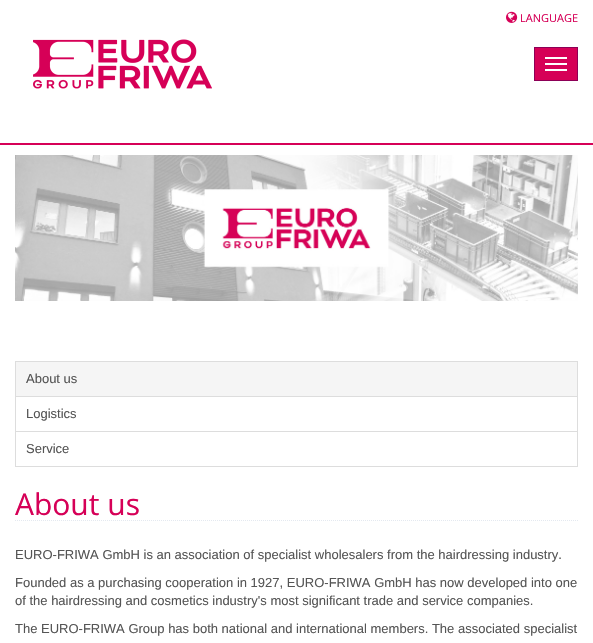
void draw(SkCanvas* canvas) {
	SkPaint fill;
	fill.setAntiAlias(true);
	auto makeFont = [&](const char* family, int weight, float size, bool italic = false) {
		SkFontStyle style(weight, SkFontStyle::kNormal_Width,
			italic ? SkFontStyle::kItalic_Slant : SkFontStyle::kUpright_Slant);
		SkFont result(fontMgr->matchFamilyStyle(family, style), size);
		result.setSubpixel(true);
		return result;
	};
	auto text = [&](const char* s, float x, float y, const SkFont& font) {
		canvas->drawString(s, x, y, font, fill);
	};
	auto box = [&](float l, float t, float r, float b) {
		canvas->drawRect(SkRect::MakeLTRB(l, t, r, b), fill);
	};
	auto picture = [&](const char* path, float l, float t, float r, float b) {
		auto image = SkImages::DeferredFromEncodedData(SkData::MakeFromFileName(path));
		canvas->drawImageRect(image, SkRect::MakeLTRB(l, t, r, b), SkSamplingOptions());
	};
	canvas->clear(0xFFFFFFFF);
	picture("image0.png", 506, 11, 518, 23);
	fill.setColor(0xFFD60057);
	box(0, 143, 593, 145);
	picture("image1.png", 33, 39, 212, 89);
	canvas->drawRect(SkRect::MakeLTRB(534.5f, 47.5f, 577.5f, 80.5f), fill);
	fill.setStyle(SkPaint::kStroke_Style);
	fill.setStrokeWidth(1);
	fill.setColor(0xFF8C0057);
	canvas->drawRect(SkRect::MakeLTRB(534.5f, 47.5f, 577.5f, 80.5f), fill);
	fill.setStyle(SkPaint::kFill_Style);
	fill.setColor(0xFFFFFFFF);
	box(545, 57, 567, 59);
	box(545, 63, 567, 65);
	box(545, 69, 567, 71);
	picture("image2.png", 15, 155, 578, 301);
	fill.setStyle(SkPaint::kStroke_Style);
	fill.setColor(0xFFDDDDDD);
	canvas->drawRect(SkRect::MakeLTRB(15.5f, 396.5f, 577.5f, 431.5f), fill);
	fill.setStyle(SkPaint::kFill_Style);
	fill.setColor(0xFFF5F5F5);
	canvas->drawRect(SkRect::MakeLTRB(15.5f, 361.5f, 577.5f, 396.5f), fill);
	fill.setStyle(SkPaint::kStroke_Style);
	fill.setColor(0xFFDDDDDD);
	canvas->drawRect(SkRect::MakeLTRB(15.5f, 361.5f, 577.5f, 396.5f), fill);
	canvas->drawRect(SkRect::MakeLTRB(15.5f, 431.5f, 577.5f, 466.5f), fill);
	fill.setColor(0xFFE4E9F0);
	fill.setPathEffect(SkDashPathEffect::Make({{1, 1}}, 0));
	canvas->drawPath(SkPathBuilder().moveTo(15, 520.5f).lineTo(578, 520.5f).detach(), fill);
	fill.setPathEffect(nullptr);
	auto font1 = makeFont("Open Sans", 400, 11);
	fill.setStyle(SkPaint::kFill_Style);
	fill.setColor(0xFFD60057);
	text("LANGUAGE", 520, 22, font1);
	auto font2 = makeFont("Liberation Sans", 400, 13);
	fill.setColor(0xFF555555);
	text("About us", 26, 383, font2);
	text("Logistics", 26, 418, font2);
	text("Service", 26, 453, font2);
	auto font3 = makeFont("Open Sans", 400, 30);
	fill.setColor(0xFFD60057);
	text("About us", 15, 515, font3);
	fill.setColor(0xFF555555);
	text("EURO-FRIWA GmbH is an association of specialist wholesalers from the hairdressing industry.", 15, 559, font2);
	text("Founded as a purchasing cooperation in 1927, EURO-FRIWA GmbH has now developed into one", 15, 587, font2);
	text("of the hairdressing and cosmetics industry's most significant trade and service companies.", 15, 605, font2);
	text("The EURO-FRIWA Group has both national and international members. The associated specialist", 15, 633, font2);
}
